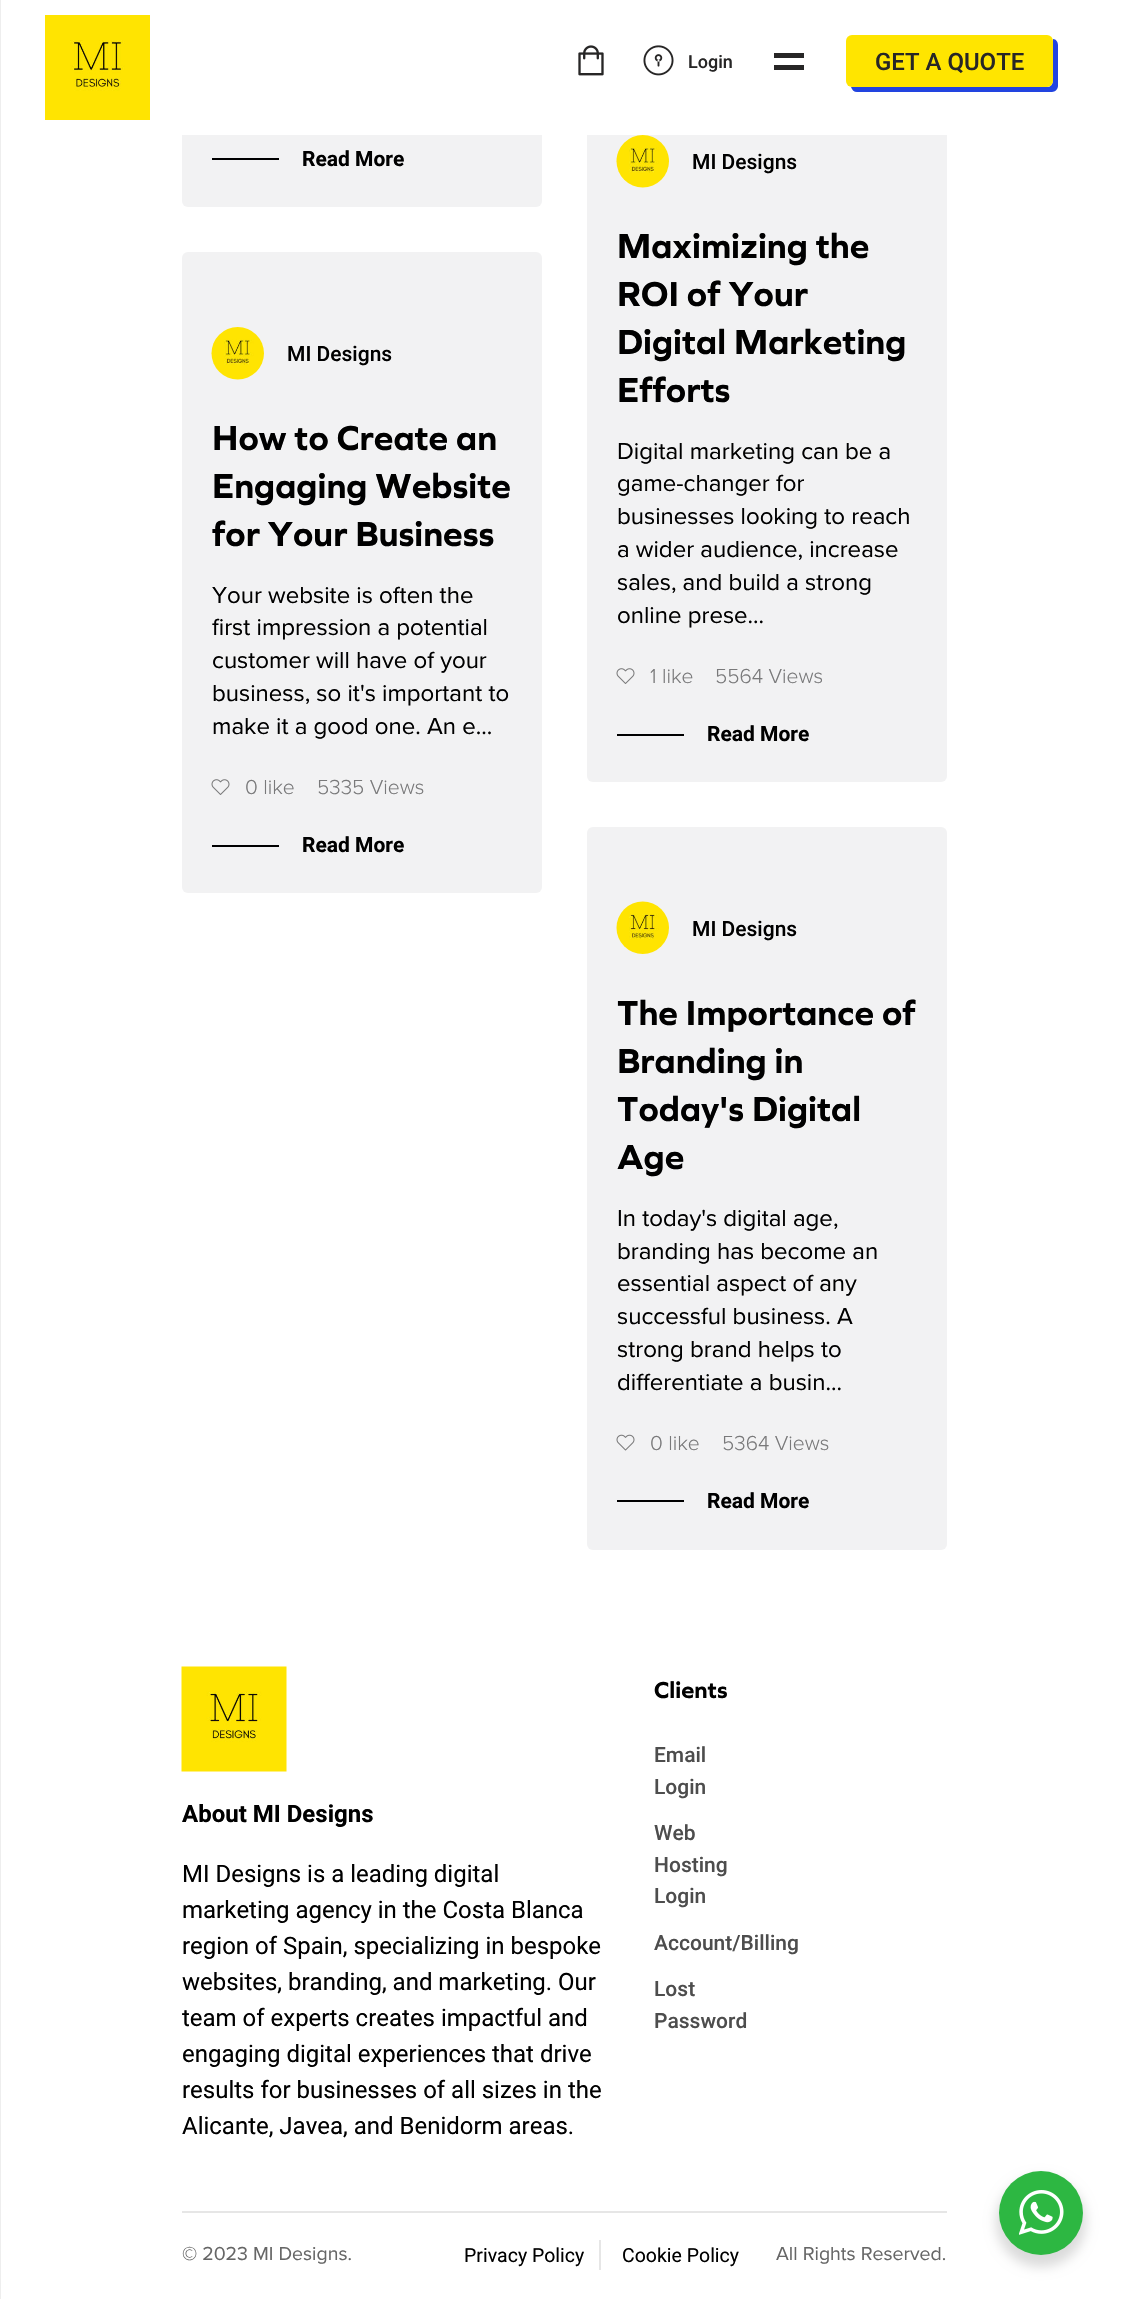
void draw(SkCanvas* canvas) {
	SkPaint fill;
	fill.setAntiAlias(true);
	auto makeFont = [&](const char* family, int weight, float size, bool italic = false) {
		SkFontStyle style(weight, SkFontStyle::kNormal_Width,
			italic ? SkFontStyle::kItalic_Slant : SkFontStyle::kUpright_Slant);
		SkFont result(fontMgr->matchFamilyStyle(family, style), size);
		result.setSubpixel(true);
		return result;
	};
	auto text = [&](const char* s, float x, float y, const SkFont& font) {
		canvas->drawString(s, x, y, font, fill);
	};
	auto box = [&](float l, float t, float r, float b) {
		canvas->drawRect(SkRect::MakeLTRB(l, t, r, b), fill);
	};
	auto roundBox = [&](float l, float t, float r, float b, float radius) {
		canvas->drawRoundRect(SkRect::MakeLTRB(l, t, r, b), radius, radius, fill);
	};
	auto picture = [&](const char* path, float l, float t, float r, float b) {
		auto image = SkImages::DeferredFromEncodedData(SkData::MakeFromFileName(path));
		canvas->drawImageRect(image, SkRect::MakeLTRB(l, t, r, b), SkSamplingOptions());
	};
	canvas->clear(0xFFFFFFFF);
	fill.setColor(0xFFEEEEEE);
	box(0, 0, 1, 2299);
	fill.setColor(0xFFF2F2F3);
	roundBox(182, -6, 542, 207, 6);
	roundBox(587, 60, 947, 782, 6);
	fill.setColor(0xFFFFFFFF);
	box(182, 0, 947, 135);
	picture("image0.png", 45, 15, 150, 120);
	picture("image1.png", 578, 45, 604, 76);
	picture("image2.png", 643, 45, 674, 76);
	fill.setColor(0xFF272626);
	box(774, 53, 804, 58);
	box(774, 65, 804, 70);
	fill.setColor(0xFF2244E0);
	canvas->drawPath(SkPathBuilder().moveTo(851, 87).cubicTo(852, 90, 854, 92, 857, 92).lineTo(1052, 92).cubicTo(1055, 92, 1058, 89, 1058, 86).lineTo(1058, 45).cubicTo(1058, 42, 1056, 39, 1053, 39).lineTo(1053, 74).cubicTo(1053, 79, 1054, 87, 1047, 87).close().detach(), fill);
	fill.setColor(0xFFFFE500);
	roundBox(846, 35, 1053, 87, 6);
	fill.setColor(0xFF000000);
	box(212, 158, 279, 160);
	picture("image3.png", 616, 135, 669, 188);
	picture("image4.png", 616, 668, 635, 684);
	box(617, 734, 684, 736);
	fill.setColor(0xFFF2F2F3);
	roundBox(182, 252, 542, 893, 6);
	picture("image5.png", 211, 327, 264, 380);
	picture("image4.png", 211, 779, 230, 795);
	fill.setColor(0xFF000000);
	box(212, 845, 279, 847);
	fill.setColor(0xFFF2F2F3);
	roundBox(587, 827, 947, 1550, 6);
	picture("image6.png", 616, 901, 669, 954);
	picture("image7.png", 616, 1434, 635, 1451);
	fill.setColor(0xFF000000);
	box(617, 1500, 684, 1502);
	picture("image8.png", 181, 1666, 287, 1772);
	fill.setColor(0xFFE6E6E6);
	box(182, 2211, 947, 2213);
	box(599, 2240, 601, 2270);
	fill.setColor(0x24000000);
	fill.setMaskFilter(SkMaskFilter::MakeBlur(kNormal_SkBlurStyle, 6));
	canvas->drawRoundRect(SkRect::MakeLTRB(996, 2177, 1086, 2267), 45, 45, fill);
	fill.setMaskFilter(nullptr);
	fill.setColor(0xFF2DB742);
	canvas->drawCircle(1041, 2213, 42, fill);
	picture("image9.png", 1019, 2190, 1064, 2235);
	auto font1 = makeFont("Roboto", 500, 18);
	fill.setColor(0xFF272626);
	text("Login", 688, 68, font1);
	auto font2 = makeFont("Roboto", 500, 24);
	text("GET A QUOTE", 875, 70, font2);
	auto font3 = makeFont("Roboto", 700, 21);
	fill.setColor(0xFF000000);
	text("Read More", 302, 166, font3);
	auto font4 = makeFont("Roboto", 500, 21);
	text("MI Designs", 692, 169, font4);
	auto font5 = makeFont("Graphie", 700, 36);
	text("Maximizing the", 617, 258, font5);
	text("ROI of Your", 617, 306, font5);
	text("Digital Marketing", 617, 354, font5);
	text("Efforts", 617, 402, font5);
	auto font6 = makeFont("Proxima Nova", 400, 24);
	text("Digital marketing can be a", 617, 459, font6);
	text("game-changer for", 617, 491, font6);
	text("businesses looking to reach", 617, 524, font6);
	text("a wider audience, increase", 617, 557, font6);
	text("sales, and build a strong", 617, 590, font6);
	text("online prese...", 617, 623, font6);
	auto font7 = makeFont("Proxima Nova", 300, 21);
	fill.setColor(0xFF79797A);
	text("1 like", 650, 683, font7);
	text("5564 Views", 715, 683, font7);
	fill.setColor(0xFF000000);
	text("Read More", 707, 741, font3);
	text("MI Designs", 287, 361, font4);
	text("How to Create an", 212, 450, font5);
	text("Engaging Website", 212, 498, font5);
	text("for Your Business", 212, 546, font5);
	text("Your website is often the", 212, 603, font6);
	text("first impression a potential", 212, 635, font6);
	text("customer will have of your", 212, 668, font6);
	text("business, so it's important to", 212, 701, font6);
	text("make it a good one. An e...", 212, 734, font6);
	fill.setColor(0xFF79797A);
	text("0 like", 245, 794, font7);
	text("5335 Views", 317, 794, font7);
	fill.setColor(0xFF000000);
	text("Read More", 302, 852, font3);
	text("MI Designs", 692, 936, font4);
	text("The Importance of", 617, 1025, font5);
	text("Branding in", 617, 1073, font5);
	text("Today's Digital", 617, 1121, font5);
	text("Age", 617, 1169, font5);
	text("In today's digital age,", 617, 1226, font6);
	text("branding has become an", 617, 1259, font6);
	text("essential aspect of any", 617, 1291, font6);
	text("successful business. A", 617, 1324, font6);
	text("strong brand helps to", 617, 1357, font6);
	text("differentiate a busin...", 617, 1390, font6);
	fill.setColor(0xFF79797A);
	text("0 like", 650, 1450, font7);
	text("5364 Views", 722, 1450, font7);
	fill.setColor(0xFF000000);
	text("Read More", 707, 1508, font3);
	auto font8 = makeFont("Roboto", 700, 24);
	text("About MI Designs", 182, 1822, font8);
	auto font9 = makeFont("Roboto", 400, 24);
	text("MI Designs is a leading digital", 182, 1882, font9);
	text("marketing agency in the Costa Blanca", 182, 1918, font9);
	text("region of Spain, specializing in bespoke", 182, 1954, font9);
	text("websites, branding, and marketing. Our", 182, 1990, font9);
	text("team of experts creates impactful and", 182, 2026, font9);
	text("engaging digital experiences that drive", 182, 2062, font9);
	text("results for businesses of all sizes in the", 182, 2098, font9);
	text("Alicante, Javea, and Benidorm areas.", 182, 2134, font9);
	auto font10 = makeFont("Graphie", 700, 24);
	text("Clients", 654, 1698, font10);
	fill.setColor(0xFF4D4D4D);
	text("Email", 654, 1762, font4);
	text("Login", 654, 1794, font4);
	text("Web", 654, 1840, font4);
	text("Hosting", 654, 1872, font4);
	text("Login", 654, 1903, font4);
	text("Account/Billing", 654, 1950, font4);
	text("Lost", 654, 1996, font4);
	text("Password", 654, 2028, font4);
	auto font11 = makeFont("Proxima Nova", 400, 19.5f);
	fill.setColor(0xFF666666);
	text("© 2023 MI Designs.", 182, 2260, font11);
	auto font12 = makeFont("Roboto", 400, 19.5f);
	fill.setColor(0xFF000000);
	text("Privacy Policy", 464, 2262, font12);
	text("Cookie Policy", 622, 2262, font12);
	fill.setColor(0xFF666666);
	text("All Rights Reserved.", 776, 2260, font11);
}
